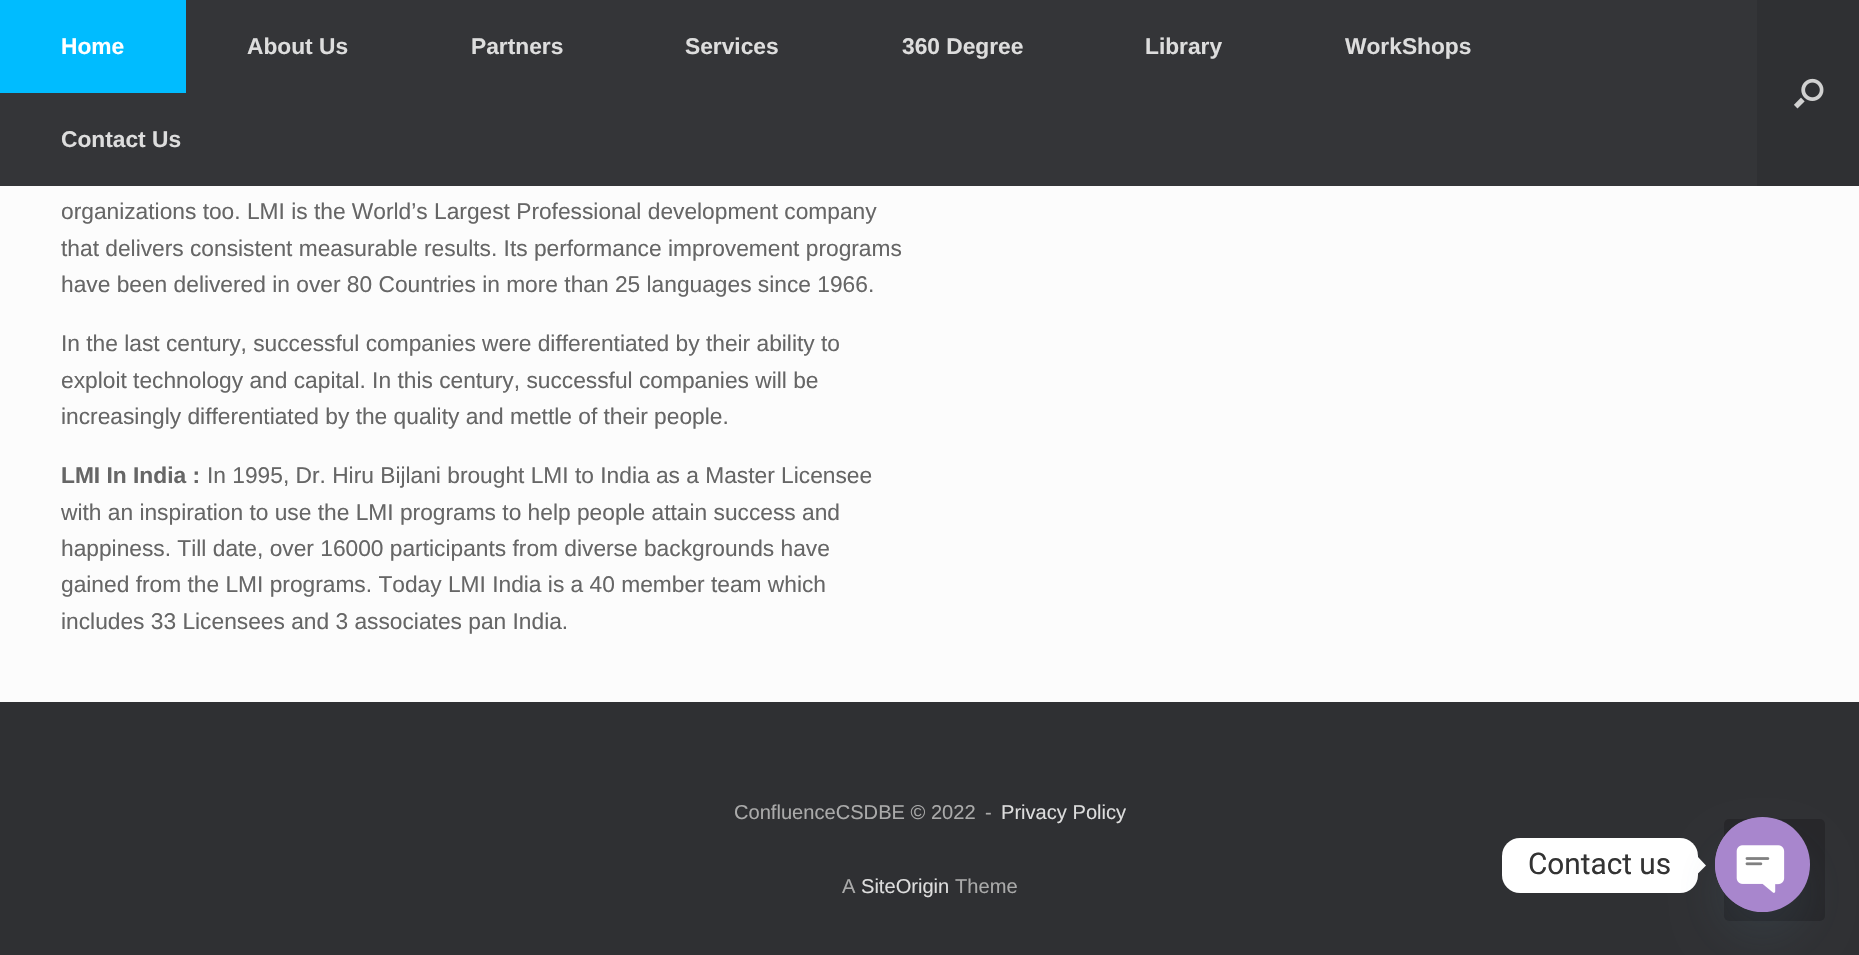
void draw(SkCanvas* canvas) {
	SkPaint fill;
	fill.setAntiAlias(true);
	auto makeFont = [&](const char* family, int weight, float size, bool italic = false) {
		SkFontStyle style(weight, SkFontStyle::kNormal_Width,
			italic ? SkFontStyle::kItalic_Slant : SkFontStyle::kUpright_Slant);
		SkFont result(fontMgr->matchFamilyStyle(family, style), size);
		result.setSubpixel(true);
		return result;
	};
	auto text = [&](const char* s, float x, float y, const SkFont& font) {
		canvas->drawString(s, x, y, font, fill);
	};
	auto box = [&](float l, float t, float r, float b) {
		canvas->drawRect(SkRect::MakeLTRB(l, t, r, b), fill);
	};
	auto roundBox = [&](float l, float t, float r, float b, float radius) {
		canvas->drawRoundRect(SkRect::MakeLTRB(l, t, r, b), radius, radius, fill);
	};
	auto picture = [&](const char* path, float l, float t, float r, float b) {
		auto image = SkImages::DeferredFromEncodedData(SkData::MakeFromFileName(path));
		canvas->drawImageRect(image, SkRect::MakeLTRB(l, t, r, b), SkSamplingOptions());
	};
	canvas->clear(0xFF2F3033);
	fill.setColor(0xFF343538);
	box(0, 0, 1757, 186);
	fill.setColor(0xFF00BCFF);
	box(0, 0, 186, 93);
	picture("image0.png", 1794, 78, 1824, 109);
	fill.setColor(0xFFFCFCFC);
	box(0, 186, 1859, 702);
	fill.setColor(0xFFFFFFFF);
	roundBox(1502, 838, 1698, 893, 18);
	canvas->drawPath(SkPathBuilder().moveTo(1697.5f, 874).lineTo(1697.5f, 856.5f).lineTo(1706, 865.5f).close().detach(), fill);
	fill.setColor(0xFF262629);
	roundBox(1724, 819, 1825, 921, 5);
	fill.setColor(0x2949687E);
	fill.setMaskFilter(SkMaskFilter::MakeBlur(kNormal_SkBlurStyle, 21));
	canvas->drawRoundRect(SkRect::MakeLTRB(1715, 845, 1810, 940), 47.5f, 47.5f, fill);
	fill.setMaskFilter(nullptr);
	fill.setColor(0xFFA886CD);
	canvas->drawCircle(1762.5f, 864.5f, 47.5f, fill);
	picture("image1.png", 1715, 818, 1785, 912);
	auto font1 = makeFont("Liberation Sans", 700, 22.75f);
	fill.setColor(0xFFFFFFFF);
	text("Home", 61, 54, font1);
	fill.setColor(0xFFDDDDDD);
	text("About Us", 247, 54, font1);
	text("Partners", 471, 54, font1);
	text("Services", 685, 54, font1);
	text("360 Degree", 902, 54, font1);
	text("Library", 1145, 54, font1);
	text("WorkShops", 1345, 54, font1);
	text("Contact Us", 61, 147, font1);
	auto font2 = makeFont("Liberation Sans", 400, 22.75f);
	fill.setColor(0xFF666666);
	text("organizations too. LMI is the World’s Largest Professional development company", 61, 219, font2);
	text("that delivers consistent measurable results. Its performance improvement programs", 61, 256, font2);
	text("have been delivered in over 80 Countries in more than 25 languages since 1966.", 61, 292, font2);
	text("In the last century, successful companies were differentiated by their ability to", 61, 351, font2);
	text("exploit technology and capital. In this century, successful companies will be", 61, 388, font2);
	text("increasingly differentiated by the quality and mettle of their people.", 61, 424, font2);
	text("LMI In India :", 61, 483, font1);
	text("In 1995, Dr. Hiru Bijlani brought LMI to India as a Master Licensee", 207, 483, font2);
	text("with an inspiration to use the LMI programs to help people attain success and", 61, 520, font2);
	text("happiness. Till date, over 16000 participants from diverse backgrounds have", 61, 556, font2);
	text("gained from the LMI programs. Today LMI India is a 40 member team which", 61, 592, font2);
	text("includes 33 Licensees and 3 associates pan India.", 61, 629, font2);
	auto font3 = makeFont("Liberation Sans", 400, 20.1f);
	fill.setColor(0xFFAAAAAA);
	text("ConfluenceCSDBE © 2022", 734, 819, font3);
	text("-", 985, 819, font3);
	fill.setColor(0xFFDDDDDD);
	text("Privacy Policy", 1001, 819, font3);
	fill.setColor(0xFFAAAAAA);
	text("A", 842, 893, font3);
	fill.setColor(0xFFDDDDDD);
	text("SiteOrigin", 861, 893, font3);
	fill.setColor(0xFFAAAAAA);
	text("Theme", 955, 893, font3);
	auto font4 = makeFont("Roboto", 400, 29.75f);
	fill.setColor(0xFF333333);
	text("Contact us", 1528, 874, font4);
}
